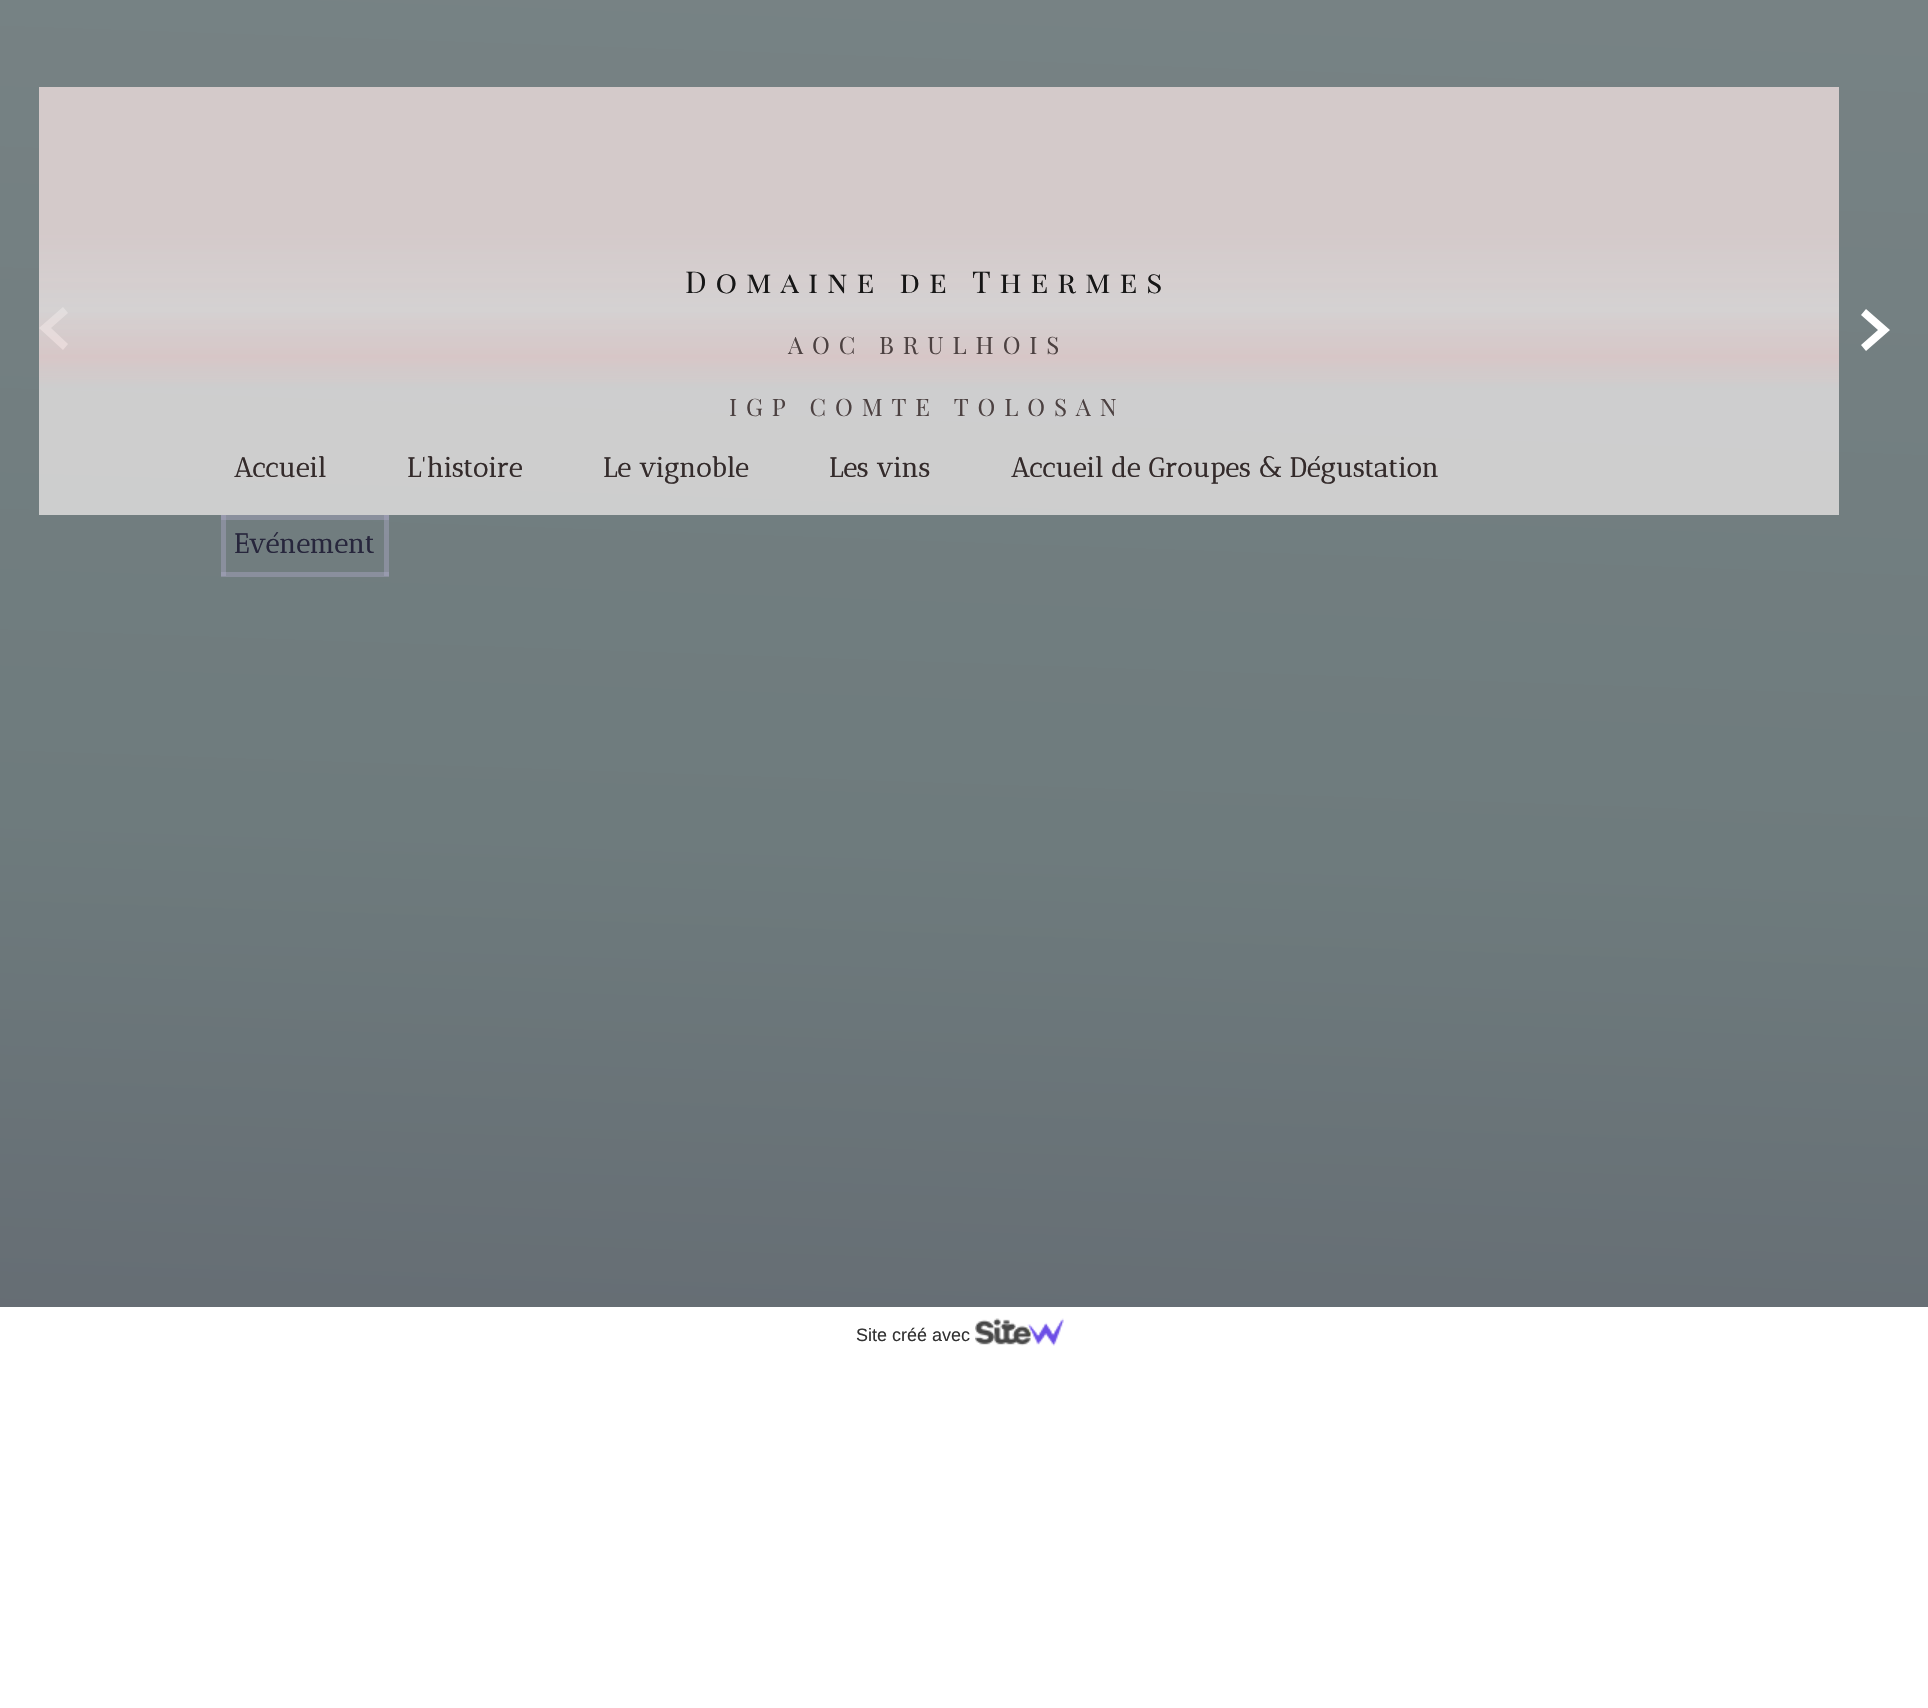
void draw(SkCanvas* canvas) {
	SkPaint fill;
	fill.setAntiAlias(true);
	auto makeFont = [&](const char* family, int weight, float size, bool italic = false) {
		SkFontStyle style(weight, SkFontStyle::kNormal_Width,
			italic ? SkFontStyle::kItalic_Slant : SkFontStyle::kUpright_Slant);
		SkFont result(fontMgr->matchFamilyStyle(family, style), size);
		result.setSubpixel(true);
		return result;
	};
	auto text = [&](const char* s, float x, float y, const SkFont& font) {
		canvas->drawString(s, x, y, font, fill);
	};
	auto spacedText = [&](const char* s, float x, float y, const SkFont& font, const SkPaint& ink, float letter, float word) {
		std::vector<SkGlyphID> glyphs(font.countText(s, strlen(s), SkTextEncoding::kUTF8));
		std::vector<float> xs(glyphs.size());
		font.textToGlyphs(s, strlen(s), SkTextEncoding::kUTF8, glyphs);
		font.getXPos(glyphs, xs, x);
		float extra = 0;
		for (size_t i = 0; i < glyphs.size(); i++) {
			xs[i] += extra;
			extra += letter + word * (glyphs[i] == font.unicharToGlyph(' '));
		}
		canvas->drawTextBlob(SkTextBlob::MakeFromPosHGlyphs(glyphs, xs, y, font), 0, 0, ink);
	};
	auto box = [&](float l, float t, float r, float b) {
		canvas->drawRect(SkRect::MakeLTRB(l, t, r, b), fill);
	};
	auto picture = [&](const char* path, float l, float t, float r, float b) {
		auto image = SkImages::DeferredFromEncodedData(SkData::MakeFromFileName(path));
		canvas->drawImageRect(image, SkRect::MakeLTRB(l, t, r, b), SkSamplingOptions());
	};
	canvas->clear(0xFFFFFFFF);
	{
		const SkColor colors[] = {0xFF7A8688, 0xFF5A5A67, 0xFF6E7B7D, 0xFF788385};
		const float stops[] = {0.34f, 0.6f, 0.81f, 0.98f};
		const SkPoint ends[] = {{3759, 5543}, {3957, -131}};
		fill.setShader(SkGradientShader::MakeLinear(ends, colors, stops, 4, SkTileMode::kClamp));
		fill.setAlpha(255);
	}
	box(0, 0, 1928, 1307);
	{
		const SkColor colors[] = {0xFF8F95A2, 0xFF7D7C8F, 0xFF888E9C, 0xFF8E93A0};
		const float stops[] = {0.34f, 0.6f, 0.81f, 0.98f};
		const SkPoint ends[] = {{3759, 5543}, {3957, -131}};
		fill.setShader(SkGradientShader::MakeLinear(ends, colors, stops, 4, SkTileMode::kClamp));
		fill.setAlpha(255);
	}
	box(384, 515, 389, 576);
	box(221, 572, 389, 577);
	{
		const SkColor colors[] = {0xFF9A9DB1, 0xFF908FA6, 0xFF9799AD, 0xFF9A9CAF};
		const float stops[] = {0.34f, 0.6f, 0.81f, 0.98f};
		const SkPoint ends[] = {{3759, 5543}, {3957, -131}};
		fill.setShader(SkGradientShader::MakeLinear(ends, colors, stops, 4, SkTileMode::kClamp));
		fill.setAlpha(255);
	}
	box(384, 572, 389, 576);
	{
		const SkColor colors[] = {0xFF8F95A2, 0xFF7D7C8F, 0xFF888E9C, 0xFF8E93A0};
		const float stops[] = {0.34f, 0.6f, 0.81f, 0.98f};
		const SkPoint ends[] = {{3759, 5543}, {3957, -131}};
		fill.setShader(SkGradientShader::MakeLinear(ends, colors, stops, 4, SkTileMode::kClamp));
		fill.setAlpha(255);
	}
	box(221, 515, 389, 520);
	{
		const SkColor colors[] = {0xFF9A9DB1, 0xFF908FA6, 0xFF9799AD, 0xFF9A9CAF};
		const float stops[] = {0.34f, 0.6f, 0.81f, 0.98f};
		const SkPoint ends[] = {{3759, 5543}, {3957, -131}};
		fill.setShader(SkGradientShader::MakeLinear(ends, colors, stops, 4, SkTileMode::kClamp));
		fill.setAlpha(255);
	}
	box(384, 515, 389, 520);
	fill.setShader(nullptr);
	fill.setColor(0xFFFFFFFF);
	canvas->drawPath(SkPathBuilder().moveTo(39, 328).lineTo(63, 307).lineTo(68, 313).lineTo(51, 328).lineTo(68, 344).lineTo(63, 350).close().detach(), fill);
	{
		const SkColor colors[] = {0xD6E6D8D8, 0xE6DFDADA, 0xDBE7D2D2, 0xC9E5E3E3};
		const float stops[] = {0.34f, 0.52f, 0.63f, 0.71f};
		const SkPoint ends[] = {{939, 87}, {939, 515}};
		fill.setShader(SkGradientShader::MakeLinear(ends, colors, stops, 4, SkTileMode::kClamp));
		fill.setAlpha(255);
	}
	box(39, 87, 1839, 515);
	fill.setShader(nullptr);
	fill.setColor(0xFFFFFFFF);
	canvas->drawPath(SkPathBuilder().moveTo(1890, 330).lineTo(1866, 351).lineTo(1861, 345).lineTo(1878, 330).lineTo(1861, 315).lineTo(1866, 309).close().detach(), fill);
	fill.setColor(0xFF8A8F9D);
	box(221, 515, 226, 576);
	fill.setColor(0xFF989AAE);
	box(221, 572, 226, 576);
	box(221, 515, 226, 520);
	picture("image0.png", 975, 1318, 1064, 1346);
	auto font1 = makeFont("Playfair Display SC", 400, 30);
	fill.setColor(0xFF161616);
	spacedText("Domaine de Thermes", 685, 293, font1, fill, 8.9f, 0);
	auto font2 = makeFont("Playfair Display SC", 400, 24);
	fill.setColor(0xFF4C4141);
	spacedText("AOC BRULHOIS", 788, 354, font2, fill, 8.9f, 0);
	spacedText("IGP COMTE TOLOSAN", 729, 416, font2, fill, 8.9f, 0);
	auto font3 = makeFont("Antic Didone", 700, 27);
	fill.setColor(0xFF342B2B);
	text("Accueil", 234, 477, font3);
	text("L'histoire", 407, 477, font3);
	text("Le vignoble", 603, 477, font3);
	text("Les vins", 829, 477, font3);
	text("Accueil de Groupes & Dégustation", 1011, 477, font3);
	fill.setColor(0xFF27263C);
	text("Evénement", 234, 553, font3);
	auto font4 = makeFont("Liberation Sans", 400, 18);
	fill.setColor(0xFF333333);
	text("Site créé avec", 856, 1341, font4);
}
